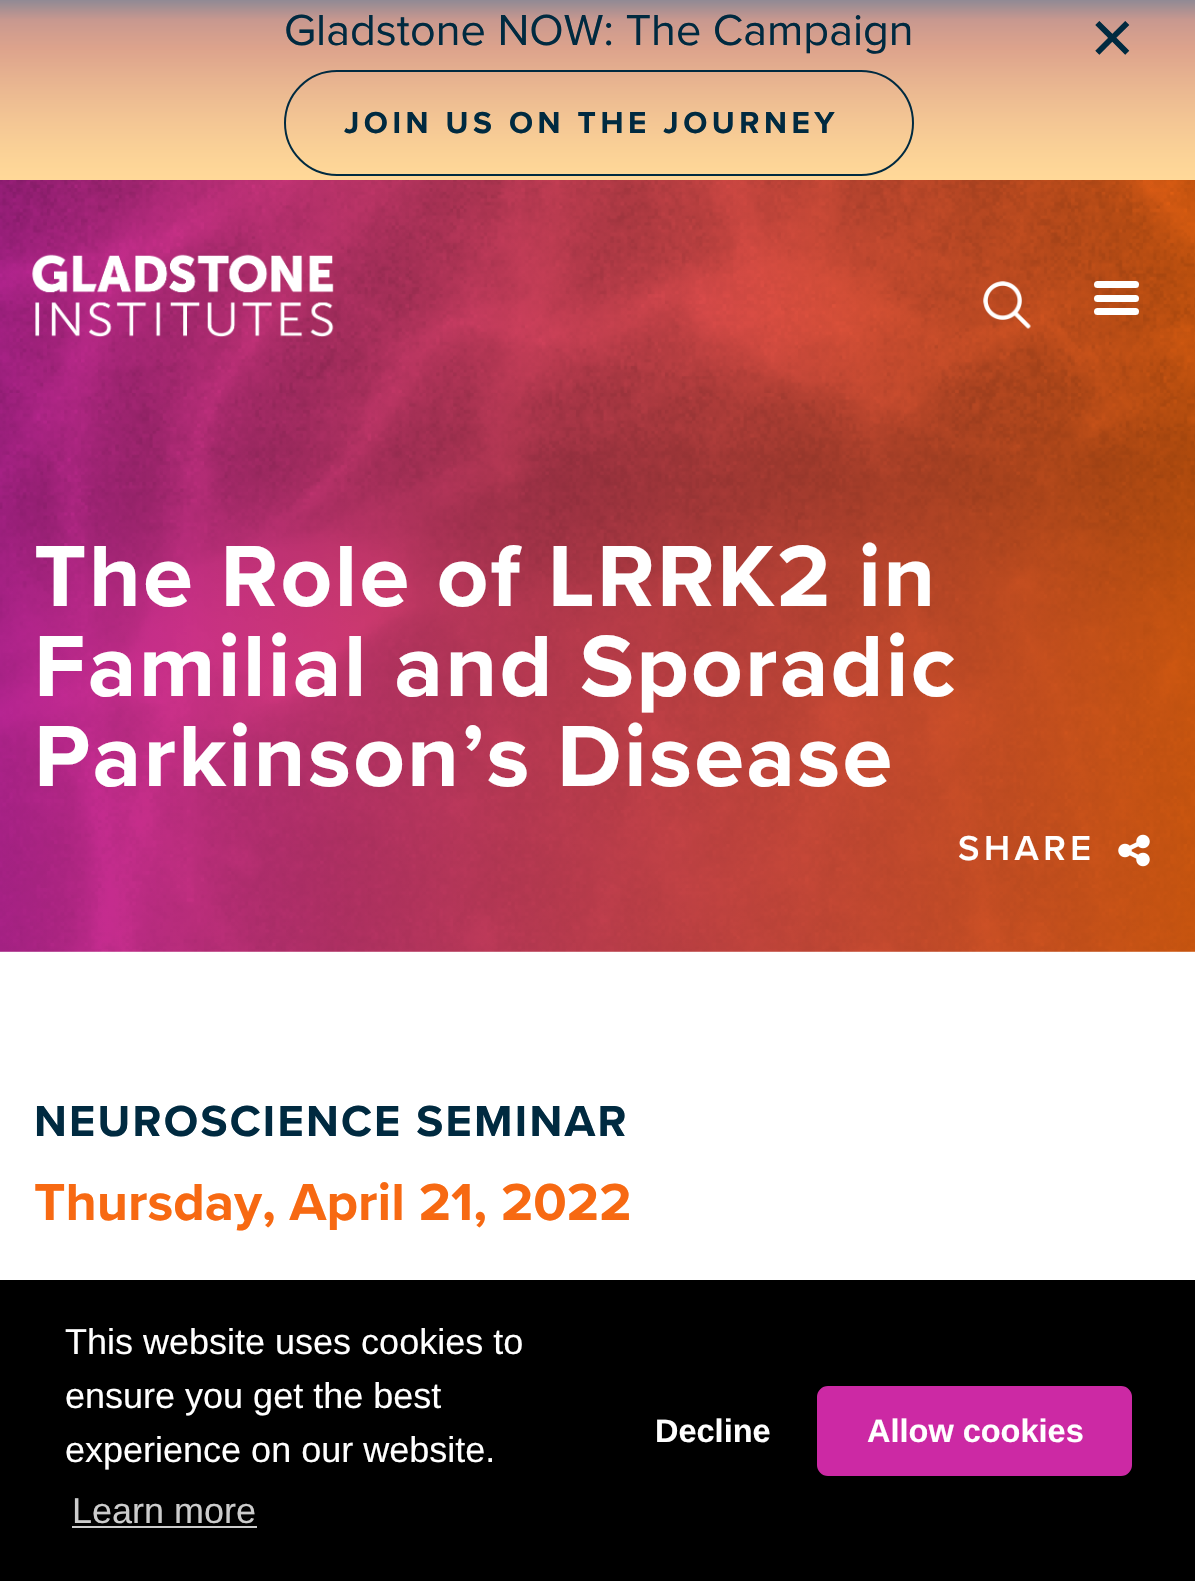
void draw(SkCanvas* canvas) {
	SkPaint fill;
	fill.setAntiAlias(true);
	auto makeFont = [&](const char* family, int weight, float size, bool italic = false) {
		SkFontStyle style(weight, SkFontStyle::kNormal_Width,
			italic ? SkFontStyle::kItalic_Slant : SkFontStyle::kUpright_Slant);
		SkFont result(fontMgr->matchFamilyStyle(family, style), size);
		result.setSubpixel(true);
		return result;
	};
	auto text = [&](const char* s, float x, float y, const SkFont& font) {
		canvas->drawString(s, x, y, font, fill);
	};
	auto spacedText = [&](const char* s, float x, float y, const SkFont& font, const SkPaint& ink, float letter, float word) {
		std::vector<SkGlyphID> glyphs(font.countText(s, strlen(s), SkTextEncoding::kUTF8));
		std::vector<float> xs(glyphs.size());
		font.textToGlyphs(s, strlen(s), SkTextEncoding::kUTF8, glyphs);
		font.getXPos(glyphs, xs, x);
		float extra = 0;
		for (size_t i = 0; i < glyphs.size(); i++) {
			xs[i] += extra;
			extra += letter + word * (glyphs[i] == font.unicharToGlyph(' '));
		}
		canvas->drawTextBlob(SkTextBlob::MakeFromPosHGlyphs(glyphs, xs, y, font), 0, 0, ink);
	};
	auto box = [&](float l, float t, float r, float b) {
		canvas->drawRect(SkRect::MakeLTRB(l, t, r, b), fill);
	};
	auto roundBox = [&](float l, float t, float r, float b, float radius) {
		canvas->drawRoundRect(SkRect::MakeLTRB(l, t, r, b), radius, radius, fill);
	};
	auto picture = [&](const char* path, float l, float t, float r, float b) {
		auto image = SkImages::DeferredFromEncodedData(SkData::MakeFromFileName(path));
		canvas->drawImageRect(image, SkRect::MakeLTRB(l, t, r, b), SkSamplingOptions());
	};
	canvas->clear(0xFFFFFFFF);
	picture("image0.png", 0, 0, 1195, 180);
	fill.setStyle(SkPaint::kStroke_Style);
	fill.setStrokeWidth(2);
	fill.setColor(0xFF002A40);
	canvas->drawRoundRect(SkRect::MakeLTRB(285, 71, 913, 175), 52, 52, fill);
	picture("image1.png", 0, 180, 1195, 952);
	picture("image2.png", 32, 254, 334, 337);
	fill.setStyle(SkPaint::kFill_Style);
	fill.setColor(0xFFFFFFFF);
	roundBox(1094, 281, 1139, 288, 3.5f);
	roundBox(1094, 295, 1139, 302, 3.5f);
	roundBox(1094, 308, 1139, 315, 3.5f);
	picture("image3.png", 983, 281, 1031, 329);
	picture("image4.png", 1118, 834, 1150, 867);
	fill.setColor(0xFF000000);
	box(0, 1280, 1195, 1581);
	fill.setColor(0xFFCCCCCC);
	box(72, 1526, 257, 1528);
	fill.setColor(0xFFCC29A4);
	canvas->drawRoundRect(SkRect::MakeLTRB(819.5f, 1388.5f, 1129.5f, 1473.5f), 8.5f, 8.5f, fill);
	fill.setStyle(SkPaint::kStroke_Style);
	fill.setStrokeWidth(5);
	canvas->drawRoundRect(SkRect::MakeLTRB(819.5f, 1388.5f, 1129.5f, 1473.5f), 8.5f, 8.5f, fill);
	auto font1 = makeFont("Proxima Nova", 400, 45);
	fill.setStyle(SkPaint::kFill_Style);
	fill.setColor(0xFF002A40);
	text("Gladstone NOW: The Campaign", 284, 45, font1);
	auto font2 = makeFont("DejaVu Sans", 400, 58);
	text("✕", 1088, 59, font2);
	auto font3 = makeFont("Proxima Nova", 700, 31.5f);
	spacedText("JOIN US ON THE JOURNEY", 344, 133, font3, fill, 4.5f, 0);
	auto font4 = makeFont("Proxima Nova", 700, 90);
	fill.setColor(0xFFFFFFFF);
	spacedText("The Role of LRRK2 in", 34, 606, font4, fill, 2.25f, 0);
	spacedText("Familial and Sporadic", 34, 696, font4, fill, 2.25f, 0);
	spacedText("Parkinson’s Disease", 34, 786, font4, fill, 2.25f, 0);
	auto font5 = makeFont("Proxima Nova", 600, 36);
	spacedText("SHARE", 958, 860, font5, fill, 4.5f, 0);
	auto font6 = makeFont("Proxima Nova", 700, 45);
	fill.setColor(0xFF002A40);
	spacedText("NEUROSCIENCE SEMINAR", 34, 1136, font6, fill, 2.25f, 0);
	auto font7 = makeFont("Proxima Nova", 700, 54);
	fill.setColor(0xFFF76912);
	text("Thursday, April 21, 2022", 34, 1220, font7);
	auto font8 = makeFont("Liberation Sans", 400, 36);
	fill.setColor(0xFFFFFFFF);
	text("This website uses cookies to", 65, 1354, font8);
	text("ensure you get the best", 65, 1408, font8);
	text("experience on our website.", 65, 1462, font8);
	fill.setColor(0xFFCCCCCC);
	text("Learn more", 72, 1523, font8);
	auto font9 = makeFont("Liberation Sans", 700, 32.5f);
	fill.setColor(0xFFFFFFFF);
	text("Decline", 655, 1442, font9);
	text("Allow cookies", 867, 1442, font9);
}
